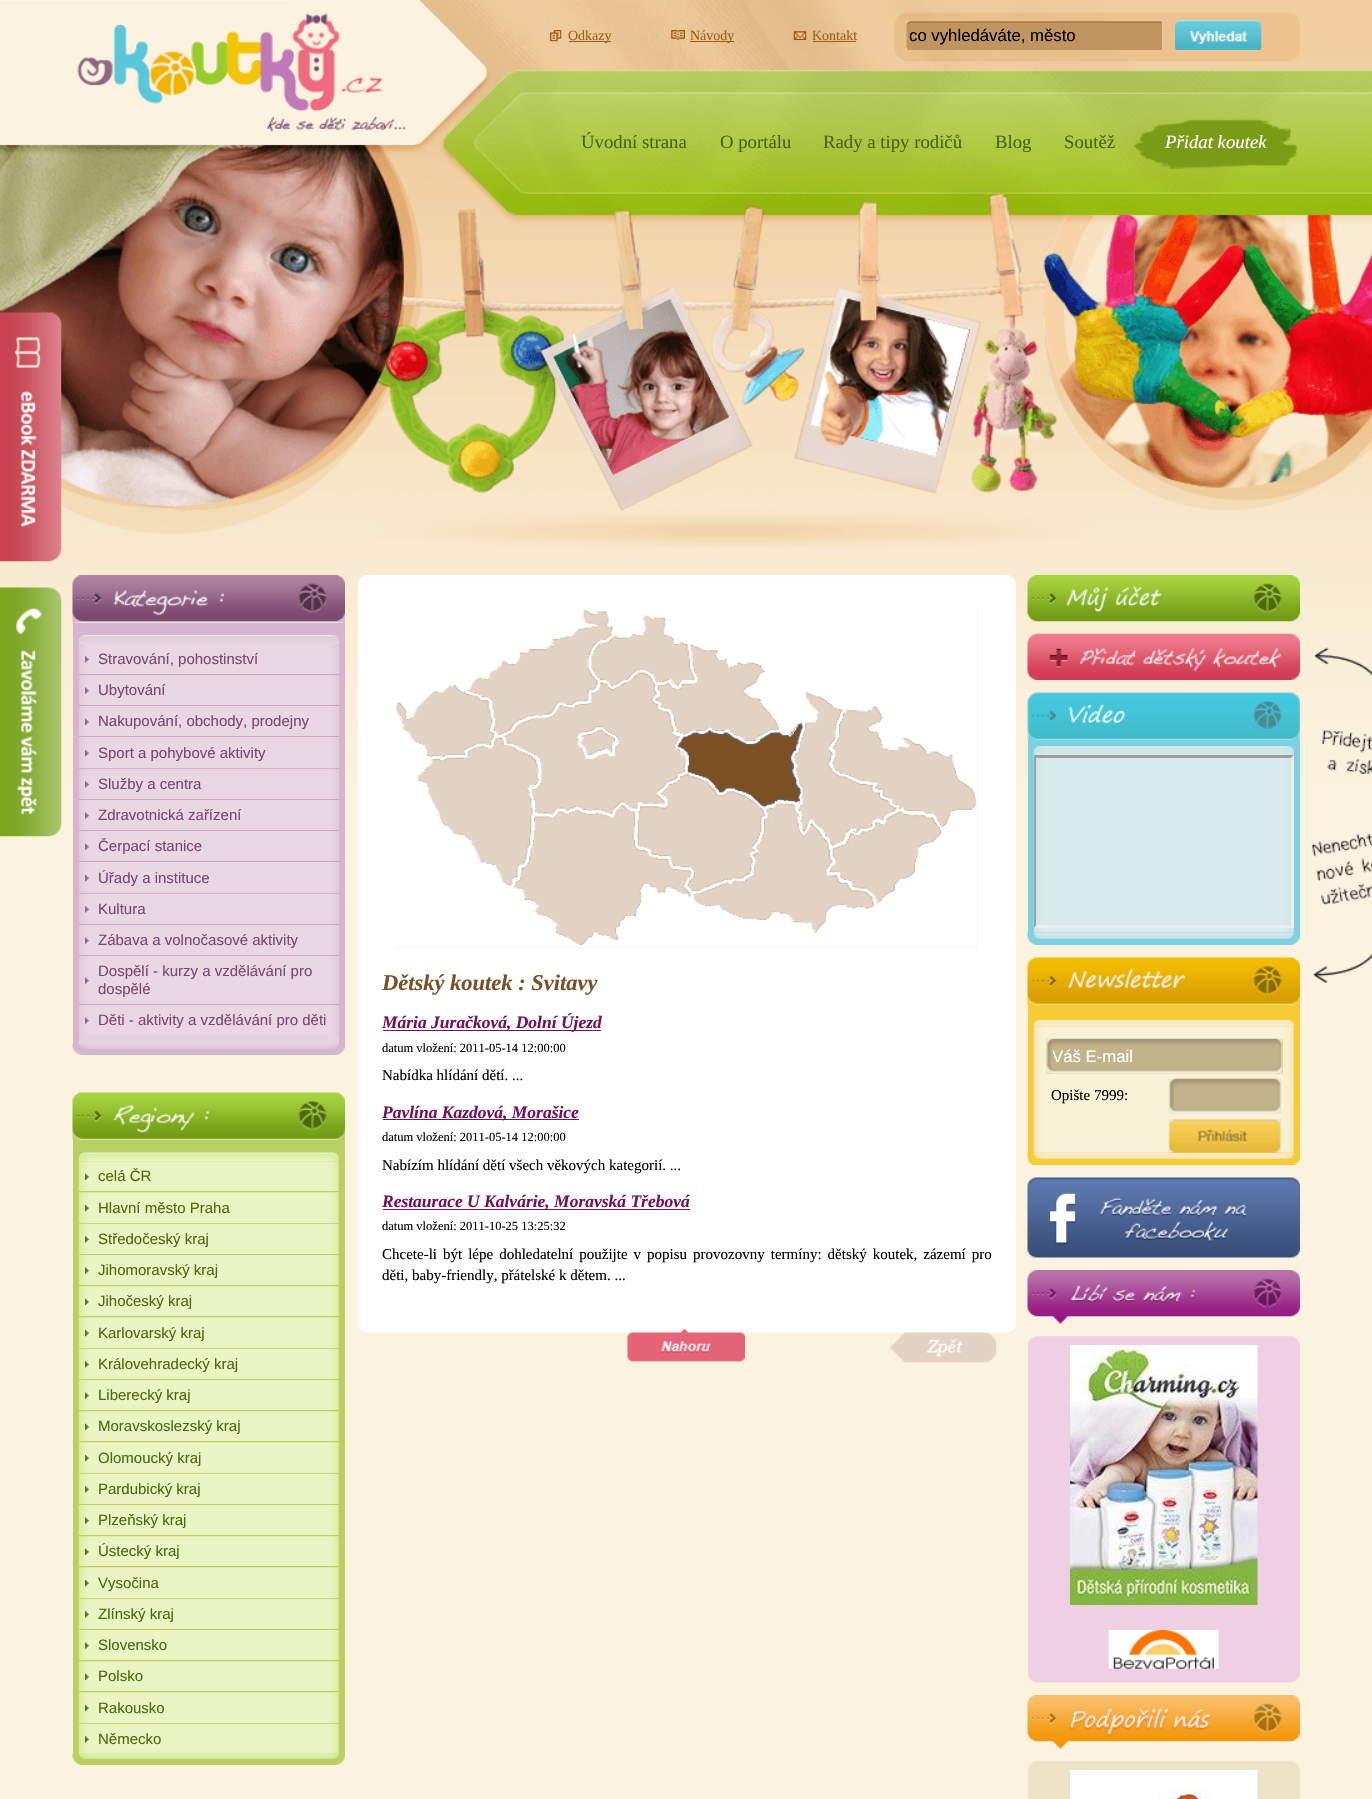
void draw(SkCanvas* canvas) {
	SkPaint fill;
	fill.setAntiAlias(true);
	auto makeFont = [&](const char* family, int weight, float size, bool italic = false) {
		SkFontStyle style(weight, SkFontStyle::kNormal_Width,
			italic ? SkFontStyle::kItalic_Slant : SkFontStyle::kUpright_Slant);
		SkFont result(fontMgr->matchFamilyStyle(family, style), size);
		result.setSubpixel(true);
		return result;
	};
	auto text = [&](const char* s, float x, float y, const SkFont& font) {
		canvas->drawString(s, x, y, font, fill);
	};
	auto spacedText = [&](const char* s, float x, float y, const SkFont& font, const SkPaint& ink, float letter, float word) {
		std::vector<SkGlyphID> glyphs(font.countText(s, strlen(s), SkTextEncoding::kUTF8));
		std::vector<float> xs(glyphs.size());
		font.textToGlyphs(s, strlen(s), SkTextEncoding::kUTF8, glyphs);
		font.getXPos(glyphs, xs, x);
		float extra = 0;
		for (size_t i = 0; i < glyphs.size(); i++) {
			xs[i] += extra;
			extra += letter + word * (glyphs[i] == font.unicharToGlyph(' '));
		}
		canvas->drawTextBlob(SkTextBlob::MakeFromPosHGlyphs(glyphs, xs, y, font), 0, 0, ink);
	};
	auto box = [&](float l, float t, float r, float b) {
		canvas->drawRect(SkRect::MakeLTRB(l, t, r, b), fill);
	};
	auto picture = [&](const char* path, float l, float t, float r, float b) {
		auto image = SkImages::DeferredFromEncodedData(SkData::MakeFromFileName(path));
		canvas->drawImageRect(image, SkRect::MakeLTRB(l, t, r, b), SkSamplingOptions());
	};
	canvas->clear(0xFFFBF3E0);
	picture("image0.png", 0, 0, 1372, 983);
	picture("image1.png", 0, 312, 62, 562);
	picture("image2.png", 0, 587, 62, 837);
	picture("image3.png", 77, 0, 406, 132);
	picture("image4.png", 550, 30, 562, 42);
	fill.setColor(0xFF9D5E17);
	box(569, 41, 611, 42);
	picture("image5.png", 671, 30, 685, 40);
	box(690, 41, 734, 42);
	picture("image6.png", 793, 31, 807, 40);
	box(813, 41, 856, 42);
	picture("image7.png", 893, 12, 1300, 62);
	fill.setColor(0xFFFFFFFF);
	box(906, 21, 1163, 50);
	picture("image8.png", 906, 21, 1163, 50);
	picture("image9.png", 1175, 20, 1262, 50);
	picture("image10.png", 1133, 119, 1298, 169);
	picture("image11.png", 72, 575, 345, 623);
	fill.setColor(0xFFD6B6CE);
	box(73, 623, 345, 1044);
	picture("image12.png", 72, 1043, 345, 1055);
	fill.setColor(0xFFE6D3E0);
	box(79, 635, 339, 1044);
	picture("image13.png", 78, 635, 339, 641);
	picture("image14.png", 78, 644, 339, 675);
	fill.setColor(0xFFC9A7C1);
	box(79, 674, 339, 675);
	picture("image15.png", 85, 656, 89, 663);
	picture("image14.png", 78, 675, 339, 706);
	box(79, 705, 339, 706);
	picture("image16.png", 85, 687, 89, 694);
	fill.setColor(0xFFE9D8E4);
	box(79, 706, 339, 738);
	picture("image17.png", 78, 706, 339, 738);
	fill.setColor(0xFFC9A7C1);
	box(79, 736, 339, 737);
	picture("image18.png", 85, 718, 89, 725);
	picture("image19.png", 78, 738, 339, 769);
	box(79, 768, 339, 769);
	picture("image20.png", 85, 750, 89, 757);
	picture("image21.png", 78, 768, 339, 800);
	box(79, 799, 339, 800);
	picture("image22.png", 85, 781, 89, 788);
	picture("image14.png", 78, 800, 339, 831);
	box(79, 830, 339, 831);
	picture("image16.png", 85, 812, 89, 819);
	fill.setColor(0xFFE9D8E4);
	box(79, 831, 339, 863);
	picture("image17.png", 78, 831, 339, 863);
	fill.setColor(0xFFC9A7C1);
	box(79, 861, 339, 862);
	picture("image18.png", 85, 843, 89, 850);
	picture("image19.png", 78, 863, 339, 894);
	box(79, 893, 339, 894);
	picture("image20.png", 85, 875, 89, 882);
	picture("image21.png", 78, 893, 339, 925);
	box(79, 924, 339, 925);
	picture("image15.png", 85, 906, 89, 913);
	picture("image14.png", 78, 925, 339, 956);
	box(79, 955, 339, 956);
	picture("image16.png", 85, 937, 89, 944);
	fill.setColor(0xFFE9D8E4);
	box(79, 956, 339, 1004);
	picture("image23.png", 78, 956, 339, 1005);
	fill.setColor(0xFFC9A7C1);
	box(79, 1004, 339, 1005);
	picture("image16.png", 85, 977, 89, 984);
	picture("image24.png", 78, 1005, 339, 1035);
	picture("image16.png", 85, 1017, 89, 1024);
	picture("image25.png", 72, 1092, 345, 1140);
	fill.setColor(0xFFB9D065);
	box(73, 1140, 345, 1754);
	picture("image26.png", 72, 1753, 345, 1765);
	box(79, 1753, 339, 1754);
	picture("image27.png", 78, 1152, 339, 1162);
	box(79, 1161, 339, 1162);
	picture("image28.png", 78, 1161, 339, 1193);
	box(79, 1191, 339, 1192);
	picture("image29.png", 85, 1173, 89, 1180);
	picture("image30.png", 78, 1192, 339, 1224);
	box(79, 1223, 339, 1224);
	picture("image31.png", 85, 1205, 89, 1212);
	picture("image32.png", 78, 1223, 339, 1255);
	box(79, 1254, 339, 1255);
	picture("image33.png", 85, 1236, 89, 1243);
	picture("image34.png", 78, 1255, 339, 1287);
	box(79, 1285, 339, 1287);
	picture("image35.png", 85, 1267, 89, 1274);
	picture("image28.png", 78, 1286, 339, 1318);
	box(79, 1316, 339, 1317);
	picture("image36.png", 85, 1298, 89, 1305);
	picture("image30.png", 78, 1317, 339, 1349);
	box(79, 1348, 339, 1349);
	picture("image31.png", 85, 1330, 89, 1337);
	picture("image32.png", 78, 1348, 339, 1380);
	box(79, 1379, 339, 1380);
	picture("image33.png", 85, 1361, 89, 1368);
	picture("image34.png", 78, 1380, 339, 1412);
	box(79, 1410, 339, 1412);
	picture("image35.png", 85, 1392, 89, 1399);
	picture("image28.png", 78, 1411, 339, 1443);
	box(79, 1441, 339, 1442);
	picture("image36.png", 85, 1423, 89, 1430);
	picture("image30.png", 78, 1442, 339, 1474);
	box(79, 1473, 339, 1474);
	picture("image31.png", 85, 1455, 89, 1462);
	picture("image32.png", 78, 1473, 339, 1505);
	box(79, 1504, 339, 1505);
	picture("image33.png", 85, 1486, 89, 1493);
	picture("image34.png", 78, 1505, 339, 1537);
	box(79, 1535, 339, 1537);
	picture("image35.png", 85, 1517, 89, 1524);
	picture("image28.png", 78, 1536, 339, 1568);
	box(79, 1566, 339, 1567);
	picture("image36.png", 85, 1548, 89, 1555);
	picture("image30.png", 78, 1567, 339, 1599);
	box(79, 1598, 339, 1599);
	picture("image31.png", 85, 1580, 89, 1587);
	picture("image32.png", 78, 1598, 339, 1630);
	box(79, 1629, 339, 1630);
	picture("image33.png", 85, 1611, 89, 1618);
	picture("image34.png", 78, 1630, 339, 1662);
	box(79, 1660, 339, 1662);
	picture("image35.png", 85, 1642, 89, 1649);
	picture("image28.png", 78, 1661, 339, 1693);
	box(79, 1691, 339, 1692);
	picture("image36.png", 85, 1673, 89, 1680);
	picture("image30.png", 78, 1692, 339, 1724);
	box(79, 1723, 339, 1724);
	picture("image31.png", 85, 1705, 89, 1712);
	picture("image37.png", 78, 1723, 339, 1754);
	picture("image33.png", 85, 1736, 89, 1743);
	picture("image38.png", 357, 575, 1017, 584);
	fill.setColor(0xFFFFFFFF);
	box(358, 584, 1016, 1324);
	fill.setColor(0xFFE3D3C4);
	box(395, 609, 978, 948);
	picture("image39.png", 395, 608, 978, 948);
	picture("image40.png", 395, 609, 978, 948);
	fill.setColor(0xFF770F5D);
	box(383, 1030, 601, 1031);
	box(383, 1119, 579, 1120);
	box(383, 1209, 690, 1210);
	picture("image41.png", 357, 1324, 1017, 1333);
	picture("image42.png", 627, 1328, 745, 1362);
	picture("image43.png", 890, 1332, 997, 1363);
	picture("image44.png", 1027, 575, 1300, 622);
	picture("image45.png", 1027, 633, 1300, 680);
	picture("image46.png", 1027, 692, 1300, 740);
	fill.setColor(0xFF7ED1E0);
	box(1028, 740, 1300, 933);
	picture("image47.png", 1027, 932, 1300, 945);
	picture("image48.png", 1033, 746, 1294, 755);
	picture("image49.png", 1033, 755, 1294, 933);
	fill.setColor(0xFF9F9F9F);
	canvas->drawPath(SkPathBuilder().moveTo(1034, 755).lineTo(1294, 755).lineTo(1291, 758).lineTo(1036, 758).close().detach(), fill);
	fill.setColor(0xFFEEEEEE);
	canvas->drawPath(SkPathBuilder().moveTo(1294, 755).lineTo(1294, 928).lineTo(1291, 925).lineTo(1291, 758).close().detach(), fill);
	canvas->drawPath(SkPathBuilder().moveTo(1294, 928).lineTo(1034, 928).lineTo(1036, 925).lineTo(1291, 925).close().detach(), fill);
	fill.setColor(0xFF9F9F9F);
	canvas->drawPath(SkPathBuilder().moveTo(1034, 928).lineTo(1034, 755).lineTo(1036, 758).lineTo(1036, 925).close().detach(), fill);
	picture("image50.png", 1027, 957, 1300, 1005);
	fill.setColor(0xFFF6CB34);
	box(1028, 1005, 1300, 1153);
	picture("image51.png", 1033, 1020, 1294, 1027);
	box(1034, 1026, 1294, 1027);
	picture("image52.png", 1033, 1026, 1294, 1153);
	box(1046, 1039, 1283, 1074);
	picture("image53.png", 1046, 1038, 1283, 1074);
	picture("image54.png", 1168, 1078, 1282, 1114);
	picture("image56.png", 1027, 1152, 1300, 1165);
	box(1169, 1152, 1281, 1153);
	picture("image55.png", 1168, 1118, 1282, 1153);
	picture("image57.png", 1027, 1177, 1300, 1258);
	picture("image58.png", 1027, 1270, 1300, 1324);
	picture("image59.png", 1027, 1336, 1300, 1345);
	fill.setColor(0xFFEFCFE4);
	box(1028, 1345, 1300, 1674);
	picture("image60.png", 1070, 1345, 1258, 1605);
	picture("image61.png", 1108, 1630, 1219, 1669);
	picture("image62.png", 1027, 1674, 1300, 1683);
	picture("image63.png", 1027, 1695, 1300, 1749);
	picture("image64.png", 1027, 1761, 1300, 1770);
	fill.setColor(0xFFEFE3C7);
	box(1028, 1770, 1300, 1799);
	picture("image65.png", 1070, 1770, 1258, 1799);
	auto font1 = makeFont("Liberation Serif", 400, 14);
	fill.setColor(0xFF9D5E17);
	text("Odkazy", 568, 40, font1);
	text("Návody", 690, 40, font1);
	text("Kontakt", 812, 40, font1);
	auto font2 = makeFont("Liberation Sans", 400, 16.75f);
	fill.setColor(0xFF000000);
	text("co vyhledáváte, město", 909, 41, font2);
	auto font3 = makeFont("Liberation Serif", 400, 18.75f);
	fill.setColor(0xFF4D6116);
	text("Úvodní strana", 581, 148, font3);
	text("O portálu", 720, 148, font3);
	text("Rady a tipy rodičů", 823, 148, font3);
	text("Blog", 995, 148, font3);
	text("Soutěž", 1064, 148, font3);
	auto font4 = makeFont("Liberation Serif", 400, 18.75f, true);
	fill.setColor(0xFFFFFFFF);
	text("Přidat koutek", 1165, 148, font4);
	auto font5 = makeFont("Liberation Sans", 400, 15);
	fill.setColor(0xFF7A486D);
	text("Stravování, pohostinství", 98, 664, font5);
	text("Ubytování", 98, 695, font5);
	text("Nakupování, obchody, prodejny", 98, 726, font5);
	text("Sport a pohybové aktivity", 98, 758, font5);
	text("Služby a centra", 98, 789, font5);
	text("Zdravotnická zařízení", 98, 820, font5);
	text("Čerpací stanice", 98, 851, font5);
	text("Úřady a instituce", 98, 883, font5);
	text("Kultura", 98, 914, font5);
	text("Zábava a volnočasové aktivity", 98, 945, font5);
	text("Dospělí - kurzy a vzdělávání pro", 98, 976, font5);
	text("dospělé", 98, 994, font5);
	text("Děti - aktivity a vzdělávání pro děti", 98, 1025, font5);
	fill.setColor(0xFF4D6910);
	text("celá ČR", 98, 1181, font5);
	text("Hlavní město Praha", 98, 1213, font5);
	text("Středočeský kraj", 98, 1244, font5);
	text("Jihomoravský kraj", 98, 1275, font5);
	text("Jihočeský kraj", 98, 1306, font5);
	text("Karlovarský kraj", 98, 1338, font5);
	text("Královehradecký kraj", 98, 1369, font5);
	text("Liberecký kraj", 98, 1400, font5);
	text("Moravskoslezský kraj", 98, 1431, font5);
	text("Olomoucký kraj", 98, 1463, font5);
	text("Pardubický kraj", 98, 1494, font5);
	text("Plzeňský kraj", 98, 1525, font5);
	text("Ústecký kraj", 98, 1556, font5);
	text("Vysočina", 98, 1588, font5);
	text("Zlínský kraj", 98, 1619, font5);
	text("Slovensko", 98, 1650, font5);
	text("Polsko", 98, 1681, font5);
	text("Rakousko", 98, 1713, font5);
	text("Německo", 98, 1744, font5);
	auto font6 = makeFont("Liberation Serif", 700, 22.5f, true);
	fill.setColor(0xFF7D5024);
	text("Dětský koutek : Svitavy", 382, 990, font6);
	auto font7 = makeFont("Liberation Serif", 700, 17.5f, true);
	fill.setColor(0xFF770F5D);
	text("Mária Juračková, Dolní Újezd", 382, 1028, font7);
	auto font8 = makeFont("Liberation Serif", 400, 12.5f);
	fill.setColor(0xFF000000);
	text("datum vložení: 2011-05-14 12:00:00", 382, 1052, font8);
	auto font9 = makeFont("Liberation Serif", 400, 15);
	text("Nabídka hlídání dětí. ...", 382, 1080, font9);
	fill.setColor(0xFF770F5D);
	text("Pavlína Kazdová, Morašice", 382, 1118, font7);
	fill.setColor(0xFF000000);
	text("datum vložení: 2011-05-14 12:00:00", 382, 1141, font8);
	text("Nabízím hlídání dětí všech věkových kategorií. ...", 382, 1170, font9);
	fill.setColor(0xFF770F5D);
	text("Restaurace U Kalvárie, Moravská Třebová", 382, 1207, font7);
	fill.setColor(0xFF000000);
	text("datum vložení: 2011-10-25 13:25:32", 382, 1230, font8);
	spacedText("Chcete-li být lépe dohledatelní použijte v popisu provozovny termíny: dětský koutek, zázemí pro", 382, 1259, font9, fill, 0, 2.25f);
	text("děti, baby-friendly, přátelské k dětem. ...", 382, 1280, font9);
	canvas->save();
	canvas->clipRect(SkRect::MakeLTRB(1053, 1048, 1276, 1066));
	fill.setColor(0xFFFFFFFF);
	text("Váš E-mail", 1052, 1062, font2);
	canvas->restore();
	fill.setColor(0xFF000000);
	text("Opište 7999:", 1051, 1100, font9);
}
